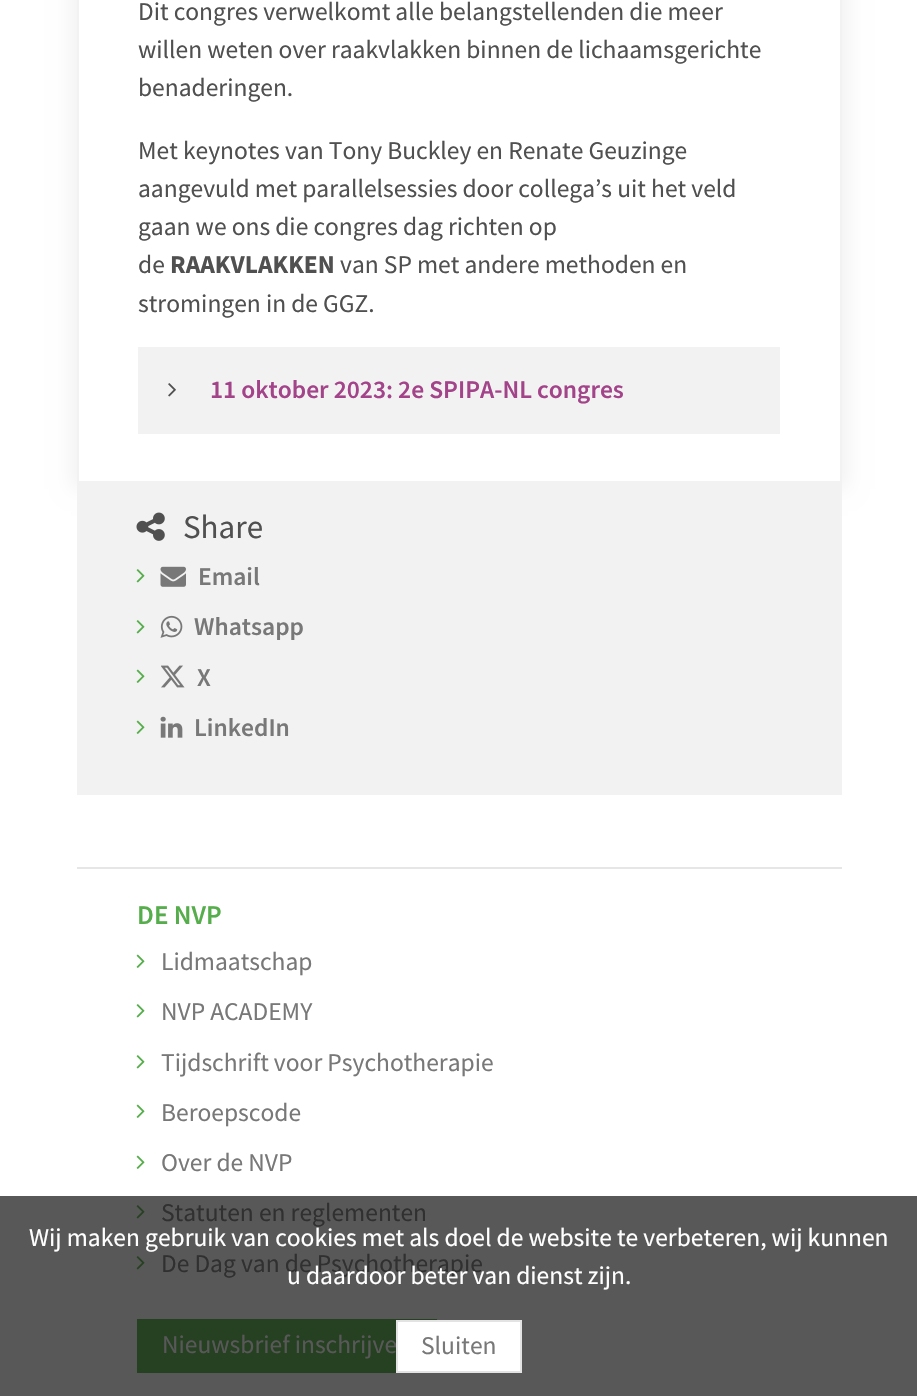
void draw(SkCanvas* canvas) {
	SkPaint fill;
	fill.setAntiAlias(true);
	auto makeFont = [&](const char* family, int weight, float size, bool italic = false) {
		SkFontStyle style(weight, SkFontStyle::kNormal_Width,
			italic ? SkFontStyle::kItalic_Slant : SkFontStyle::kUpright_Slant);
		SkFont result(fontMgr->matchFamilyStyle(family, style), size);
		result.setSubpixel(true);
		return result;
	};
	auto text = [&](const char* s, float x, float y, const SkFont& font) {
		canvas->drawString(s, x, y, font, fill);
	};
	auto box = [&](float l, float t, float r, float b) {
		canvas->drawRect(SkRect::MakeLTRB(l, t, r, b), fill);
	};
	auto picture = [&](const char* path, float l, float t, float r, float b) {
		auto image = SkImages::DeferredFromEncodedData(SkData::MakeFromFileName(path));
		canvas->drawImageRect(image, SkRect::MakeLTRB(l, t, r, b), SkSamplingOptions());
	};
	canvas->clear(0xFFFFFFFF);
	fill.setColor(0xFF585858);
	box(0, 1196, 917, 1396);
	fill.setColor(0xFFF2F2F2);
	box(77, 483, 842, 795);
	picture("image1.png", 136, 512, 165, 541);
	fill.setMaskFilter(SkMaskFilter::MakeBlur(kNormal_SkBlurStyle, 9));
	canvas->drawRect(SkRect::MakeLTRB(71, -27, 848, 489), fill);
	fill.setMaskFilter(nullptr);
	fill.setColor(0xFFFFFFFF);
	canvas->drawRect(SkRect::MakeLTRB(78, -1, 841, 482), fill);
	fill.setStyle(SkPaint::kStroke_Style);
	fill.setStrokeWidth(2);
	fill.setColor(0xFFF2F2F2);
	canvas->drawRect(SkRect::MakeLTRB(78, -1, 841, 482), fill);
	fill.setStyle(SkPaint::kFill_Style);
	box(138, 347, 780, 434);
	picture("image0.png", 168, 383, 176, 397);
	picture("image2.png", 136, 569, 145, 583);
	picture("image3.png", 160, 566, 186, 587);
	picture("image2.png", 136, 620, 145, 634);
	picture("image4.png", 160, 615, 183, 638);
	picture("image5.png", 136, 669, 145, 683);
	picture("image6.png", 161, 665, 185, 688);
	picture("image5.png", 136, 720, 145, 734);
	picture("image7.png", 160, 716, 183, 738);
	fill.setColor(0xFFE6E6E6);
	box(77, 867, 842, 869);
	picture("image8.png", 136, 954, 145, 968);
	picture("image9.png", 136, 1004, 145, 1018);
	picture("image9.png", 136, 1055, 145, 1069);
	picture("image8.png", 136, 1104, 145, 1118);
	picture("image8.png", 136, 1155, 145, 1169);
	picture("image10.png", 136, 1205, 145, 1219);
	picture("image10.png", 136, 1256, 145, 1270);
	fill.setColor(0xFF264022);
	box(137, 1319, 437, 1373);
	auto font1 = makeFont("Source Sans Pro", 400, 25.5f);
	fill.setColor(0xFF505050);
	text("Dit congres verwelkomt alle belangstellenden die meer", 138, 20, font1);
	text("willen weten over raakvlakken binnen de lichaamsgerichte", 138, 58, font1);
	text("benaderingen.", 138, 96, font1);
	text("Met keynotes van Tony Buckley en Renate Geuzinge", 138, 159, font1);
	text("aangevuld met parallelsessies door collega’s uit het veld", 138, 197, font1);
	text("gaan we ons die congres dag richten op", 138, 235, font1);
	text("de", 138, 273, font1);
	auto font2 = makeFont("Source Sans Pro", 700, 25.5f);
	text("RAAKVLAKKEN", 170, 273, font2);
	text("van SP met andere methoden en", 340, 273, font1);
	text("stromingen in de GGZ.", 138, 312, font1);
	auto font3 = makeFont("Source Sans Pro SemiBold", 600, 25.5f);
	fill.setColor(0xFFA34389);
	text("11 oktober 2023: 2e SPIPA-NL congres", 210, 398, font3);
	auto font4 = makeFont("Source Sans Pro", 400, 33);
	fill.setColor(0xFF505050);
	text("Share", 183, 538, font4);
	fill.setColor(0xFF787878);
	text("Email", 198, 585, font3);
	text("Whatsapp", 194, 635, font3);
	text("X", 197, 686, font3);
	text("LinkedIn", 194, 736, font3);
	auto font5 = makeFont("Source Sans Pro SemiBold", 600, 27);
	fill.setColor(0xFF56AD4B);
	text("DE NVP", 137, 924, font5);
	fill.setColor(0xFF787878);
	text("Lidmaatschap", 161, 970, font1);
	text("NVP ACADEMY", 161, 1020, font1);
	text("Tijdschrift voor Psychotherapie", 161, 1071, font1);
	text("Beroepscode", 161, 1121, font1);
	text("Over de NVP", 161, 1171, font1);
	fill.setColor(0xFF303030);
	text("Statuten en reglementen", 161, 1221, font1);
	text("De Dag van de Psychotherapie", 161, 1272, font1);
	fill.setColor(0xFF585858);
	text("Nieuwsbrief inschrijve", 162, 1353, font1);
	fill.setColor(0xFFFFFFFF);
	text("Wij maken gebruik van cookies met als doel de website te verbeteren, wij kunnen", 29, 1246, font1);
	text("u daardoor beter van dienst zijn.", 287, 1284, font1);
	canvas->drawRect(SkRect::MakeLTRB(397, 1321, 521, 1372), fill);
	fill.setStyle(SkPaint::kStroke_Style);
	fill.setColor(0xFFE3E3E3);
	canvas->drawRect(SkRect::MakeLTRB(397, 1321, 521, 1372), fill);
	fill.setStyle(SkPaint::kFill_Style);
	fill.setColor(0xFF787878);
	text("Sluiten", 421, 1354, font1);
}
